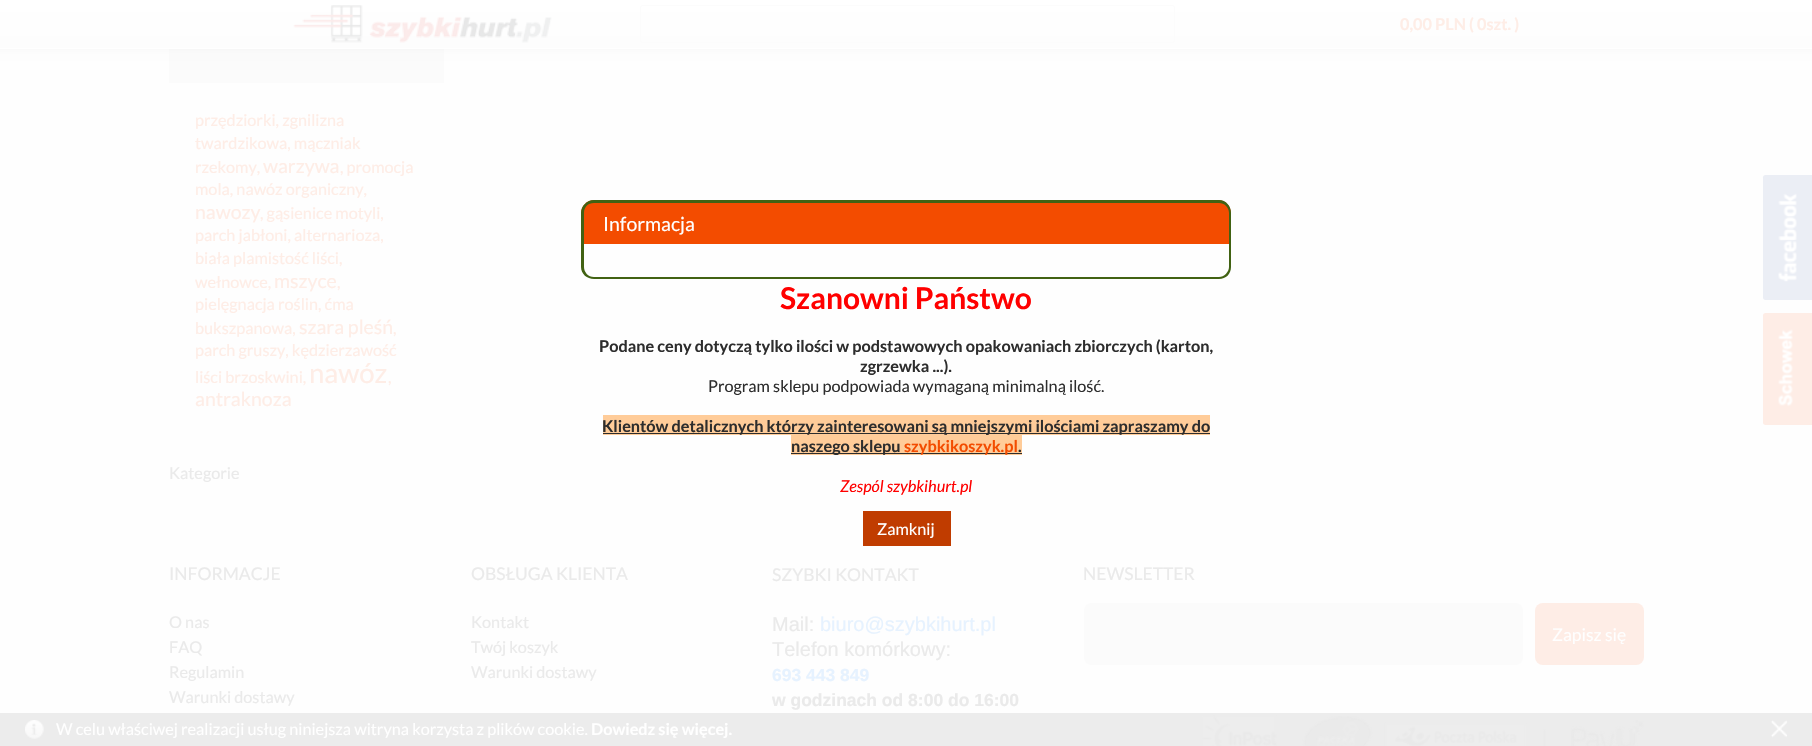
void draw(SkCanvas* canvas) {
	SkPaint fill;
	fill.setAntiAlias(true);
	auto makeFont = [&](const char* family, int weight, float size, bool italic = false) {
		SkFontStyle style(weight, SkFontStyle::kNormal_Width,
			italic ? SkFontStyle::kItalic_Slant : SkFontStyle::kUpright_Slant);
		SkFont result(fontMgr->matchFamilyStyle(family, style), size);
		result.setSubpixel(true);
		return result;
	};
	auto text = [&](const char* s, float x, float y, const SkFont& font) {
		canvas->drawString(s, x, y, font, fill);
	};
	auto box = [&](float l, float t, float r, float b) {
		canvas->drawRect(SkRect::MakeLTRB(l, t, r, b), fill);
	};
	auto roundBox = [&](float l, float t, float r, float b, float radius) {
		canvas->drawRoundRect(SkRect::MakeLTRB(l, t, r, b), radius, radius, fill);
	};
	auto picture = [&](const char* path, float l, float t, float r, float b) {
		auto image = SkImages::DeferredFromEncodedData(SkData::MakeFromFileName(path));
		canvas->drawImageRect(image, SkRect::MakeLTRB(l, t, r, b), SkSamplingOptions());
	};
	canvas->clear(0xFFFEFEFE);
	fill.setColor(0xFFECECEC);
	box(0, 713, 1812, 746);
	fill.setColor(0xFFFBFBFB);
	box(169, 49, 444, 83);
	fill.setColor(0xFFE6E6E6);
	fill.setMaskFilter(SkMaskFilter::MakeBlur(kNormal_SkBlurStyle, 6));
	canvas->drawRect(SkRect::MakeLTRB(-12, -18, 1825, 43), fill);
	fill.setMaskFilter(nullptr);
	{
		const SkColor colors[] = {0xFFFFFFFF, 0xFFFDFDFD};
		const float stops[] = {0, 1};
		const SkPoint ends[] = {{906, 0}, {906, 48}};
		fill.setShader(SkGradientShader::MakeLinear(ends, colors, stops, 2, SkTileMode::kClamp));
		fill.setAlpha(255);
	}
	box(0, 0, 1812, 48);
	{
		const SkColor colors[] = {0xFFFFFFFF, 0xFFFDFDFD};
		const float stops[] = {0, 1};
		const SkPoint ends[] = {{906, 47}, {906, 95}};
		fill.setShader(SkGradientShader::MakeLinear(ends, colors, stops, 2, SkTileMode::kClamp));
		fill.setAlpha(255);
	}
	box(0, 48, 1812, 49);
	picture("image0.png", 293, 5, 552, 43);
	fill.setStyle(SkPaint::kStroke_Style);
	fill.setStrokeWidth(1);
	fill.setShader(nullptr);
	fill.setColor(0xFFFCFCFC);
	canvas->drawRoundRect(SkRect::MakeLTRB(640.5f, 5.5f, 1174.5f, 42.5f), 2, 2, fill);
	fill.setStyle(SkPaint::kFill_Style);
	fill.setColor(0xFFF34C00);
	canvas->drawPath(SkPathBuilder().moveTo(594, 200).lineTo(1218, 200).cubicTo(1225, 200, 1231, 206, 1231, 213).lineTo(1231, 244).lineTo(581, 244).lineTo(581, 213).cubicTo(581, 206, 587, 200, 594, 200).close().detach(), fill);
	fill.setColor(0xFF416213);
	canvas->drawPath(SkPathBuilder(SkPathFillType::kEvenOdd).moveTo(594, 200).lineTo(1219, 200).cubicTo(1226, 200, 1231, 206, 1231, 213).lineTo(1231, 244).lineTo(581, 244).lineTo(581, 213).cubicTo(581, 206, 587, 200, 594, 200).close().moveTo(594, 203).lineTo(1219, 203).cubicTo(1224, 203, 1229, 207, 1229, 213).lineTo(1229, 244).lineTo(584, 244).lineTo(584, 213).cubicTo(584, 207, 588, 203, 594, 203).close().detach(), fill);
	canvas->drawPath(SkPathBuilder(SkPathFillType::kEvenOdd).moveTo(581, 244).lineTo(1231, 244).lineTo(1231, 267).cubicTo(1231, 274, 1226, 279, 1219, 279).lineTo(594, 279).cubicTo(587, 279, 581, 274, 581, 267).close().moveTo(584, 244).lineTo(1229, 244).lineTo(1229, 267).cubicTo(1229, 272, 1224, 277, 1219, 277).lineTo(594, 277).cubicTo(588, 277, 584, 272, 584, 267).close().detach(), fill);
	fill.setColor(0xFFFFCC99);
	box(603, 415, 1210, 435);
	fill.setColor(0xFF2D2D2D);
	box(603, 433, 1210, 434);
	fill.setColor(0xFFFFCC99);
	box(791, 435, 1022, 455);
	fill.setColor(0xFF2D2D2D);
	box(791, 453, 1022, 454);
	fill.setColor(0xFFC03C00);
	box(863, 511, 951, 546);
	fill.setColor(0xFFEBEEF5);
	canvas->drawPath(SkPathBuilder().moveTo(1765.5f, 175).lineTo(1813, 175).lineTo(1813, 300).lineTo(1765.5f, 300).cubicTo(1764, 300, 1763, 299, 1763, 297.5f).lineTo(1763, 177.5f).cubicTo(1763, 176, 1764, 175, 1765.5f, 175).close().detach(), fill);
	picture("image1.png", 1778, 193, 1797, 282);
	fill.setColor(0xFFFEEDE6);
	canvas->drawPath(SkPathBuilder().moveTo(1765.5f, 313).lineTo(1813, 313).lineTo(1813, 425).lineTo(1765.5f, 425).cubicTo(1764, 425, 1763, 424, 1763, 422.5f).lineTo(1763, 315.5f).cubicTo(1763, 314, 1764, 313, 1765.5f, 313).close().detach(), fill);
	picture("image2.png", 1778, 329, 1794, 407);
	fill.setColor(0xFFFBFBFB);
	roundBox(1084, 603, 1523, 665, 8);
	fill.setColor(0xFFFEEDE6);
	roundBox(1535, 603, 1644, 665, 8);
	picture("image3.png", 1201, 715, 1644, 746);
	picture("image4.png", 25, 720, 44, 739);
	picture("image5.png", 1770, 720, 1788, 738);
	auto font1 = makeFont("Lato", 700, 16.25f);
	text("0,00 PLN ( 0szt. )", 1400, 30, font1);
	auto font2 = makeFont("Lato", 400, 16.25f);
	text("przędziorki, zgnilizna", 195, 126, font2);
	text("twardzikowa, mączniak", 195, 149, font2);
	text("rzekomy,", 195, 173, font2);
	auto font3 = makeFont("Lato", 400, 19.5f);
	text("warzywa", 263, 173, font3);
	text(", promocja", 340, 173, font2);
	text("mola, nawóz organiczny,", 195, 195, font2);
	text("nawozy", 195, 219, font3);
	text(", gąsienice motyli,", 260, 219, font2);
	text("parch jabłoni, alternarioza,", 195, 241, font2);
	text("biała plamistość liści,", 195, 264, font2);
	text("wełnowce,", 195, 288, font2);
	text("mszyce", 274, 288, font3);
	text(",", 337, 288, font2);
	text("pielęgnacja roślin, ćma", 195, 310, font2);
	text("bukszpanowa,", 195, 334, font2);
	text("szara pleśń", 299, 334, font3);
	text(",", 393, 334, font2);
	text("parch gruszy, kędzierzawość", 195, 356, font2);
	text("liści brzoskwini,", 195, 383, font2);
	auto font4 = makeFont("Lato", 400, 27.5f);
	text("nawóz", 309, 383, font4);
	text(",", 388, 383, font2);
	text("antraknoza", 195, 406, font3);
	fill.setColor(0xFFEAEAEA);
	text("Kategorie", 169, 479, font2);
	fill.setColor(0xFFFFFFFF);
	text("Informacja", 603, 231, font3);
	auto font5 = makeFont("Lato", 700, 30);
	fill.setColor(0xFFFF0000);
	text("Szanowni Państwo", 780, 309, font5);
	fill.setColor(0xFF2D2D2D);
	text("Podane ceny dotyczą tylko ilości w podstawowych opakowaniach zbiorczych (karton,", 599, 352, font1);
	text("zgrzewka ...).", 860, 372, font1);
	text("Program sklepu podpowiada wymaganą minimalną ilość.", 708, 392, font2);
	text("Klientów detalicznych którzy zainteresowani są mniejszymi ilościami zapraszamy do", 602, 432, font1);
	text("naszego sklepu", 791, 452, font1);
	fill.setColor(0xFFF34C00);
	text("szybkikoszyk.pl", 904, 452, font1);
	fill.setColor(0xFF2D2D2D);
	text(".", 1018, 452, font1);
	auto font6 = makeFont("Lato", 400, 16.25f, true);
	fill.setColor(0xFFFF0000);
	text("Zespól szybkihurt.pl", 840, 492, font6);
	fill.setColor(0xFFFFFFFF);
	text("Zamknij", 877, 535, font2);
	auto font7 = makeFont("Lato", 400, 17.5f);
	fill.setColor(0xFFEAEAEA);
	text("INFORMACJE", 169, 580, font7);
	text("O nas", 169, 628, font2);
	text("FAQ", 169, 653, font2);
	text("Regulamin", 169, 678, font2);
	text("Warunki dostawy", 169, 703, font2);
	text("OBSŁUGA KLIENTA", 471, 580, font7);
	text("Kontakt", 471, 628, font2);
	text("Twój koszyk", 471, 653, font2);
	text("Warunki dostawy", 471, 678, font2);
	text("SZYBKI KONTAKT", 772, 581, font7);
	auto font8 = makeFont("Liberation Sans", 400, 20);
	text("Mail:", 772, 631, font8);
	fill.setColor(0xFFE6F2FF);
	text("biuro@szybkihurt.pl", 820, 631, font8);
	fill.setColor(0xFFEAEAEA);
	text("Telefon komórkowy:", 772, 656, font8);
	auto font9 = makeFont("Liberation Sans", 700, 17.5f);
	fill.setColor(0xFFE6F2FF);
	text("693 443 849", 772, 681, font9);
	fill.setColor(0xFFEAEAEA);
	text("w godzinach od 8:00 do 16:00", 772, 706, font9);
	text("NEWSLETTER", 1083, 580, font7);
	fill.setColor(0xFFFFFFFF);
	text("Zapisz się", 1552, 641, font7);
	text("W celu właściwej realizacji usług niniejsza witryna korzysta z plików cookie.", 56, 735, font2);
	text("Dowiedz się więcej.", 591, 735, font1);
}
